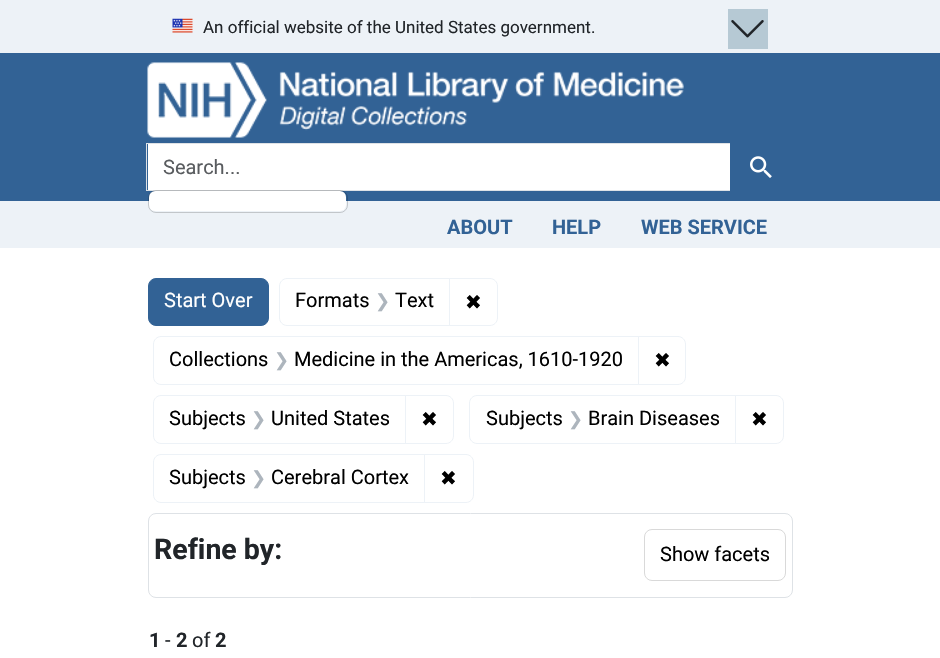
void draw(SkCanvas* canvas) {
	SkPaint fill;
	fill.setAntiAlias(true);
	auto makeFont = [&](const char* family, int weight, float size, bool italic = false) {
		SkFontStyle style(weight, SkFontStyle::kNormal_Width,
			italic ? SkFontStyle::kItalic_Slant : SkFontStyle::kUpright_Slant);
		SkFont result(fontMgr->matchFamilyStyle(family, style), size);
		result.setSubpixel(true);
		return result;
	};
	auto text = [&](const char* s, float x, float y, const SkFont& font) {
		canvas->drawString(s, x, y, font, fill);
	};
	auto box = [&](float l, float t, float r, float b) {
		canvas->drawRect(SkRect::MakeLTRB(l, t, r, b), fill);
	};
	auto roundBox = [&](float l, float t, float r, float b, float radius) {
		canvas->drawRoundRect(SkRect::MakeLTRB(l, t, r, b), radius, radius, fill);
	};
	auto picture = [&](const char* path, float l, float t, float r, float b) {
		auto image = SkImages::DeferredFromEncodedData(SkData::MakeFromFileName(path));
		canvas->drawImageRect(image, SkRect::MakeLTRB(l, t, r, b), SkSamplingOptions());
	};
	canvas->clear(0xFFFFFFFF);
	fill.setColor(0xFFEDF2F7);
	box(0, 0, 940, 53);
	picture("image0.png", 172, 18, 193, 33);
	fill.setColor(0xFFB6C9D4);
	box(728, 9, 768, 49);
	picture("image1.png", 731, 20, 764, 38);
	fill.setColor(0xFF326295);
	box(0, 53, 940, 201);
	picture("image2.png", 147, 62, 684, 138);
	fill.setColor(0xFFFFFFFF);
	box(148, 144, 730, 190);
	fill.setStyle(SkPaint::kStroke_Style);
	fill.setStrokeWidth(1);
	fill.setColor(0xFFDEE2E6);
	canvas->drawRect(SkRect::MakeLTRB(146.5f, 143.5f, 730.5f, 190.5f), fill);
	fill.setStyle(SkPaint::kFill_Style);
	fill.setColor(0xFFEDF2F7);
	box(0, 201, 940, 248);
	fill.setColor(0xFFFFFFFF);
	roundBox(149, 191, 346, 211, 6);
	fill.setStyle(SkPaint::kStroke_Style);
	fill.setColor(0x2E000000);
	canvas->drawRoundRect(SkRect::MakeLTRB(148.5f, 190.5f, 347.5f, 212.5f), 7.5f, 7.5f, fill);
	fill.setStyle(SkPaint::kFill_Style);
	fill.setColor(0xFF326295);
	canvas->drawPath(SkPathBuilder().moveTo(730, 143).lineTo(785, 143).cubicTo(789.5f, 143, 793, 146.5f, 793, 151).lineTo(793, 183).cubicTo(793, 187.5f, 789.5f, 191, 785, 191).lineTo(730, 191).close().detach(), fill);
	picture("image3.png", 750, 156, 772, 178);
	canvas->drawRoundRect(SkRect::MakeLTRB(148.5f, 278.5f, 268.5f, 325.5f), 7.5f, 7.5f, fill);
	fill.setStyle(SkPaint::kStroke_Style);
	canvas->drawRoundRect(SkRect::MakeLTRB(148.5f, 278.5f, 268.5f, 325.5f), 7.5f, 7.5f, fill);
	fill.setColor(0xFFEDF2F7);
	canvas->drawPath(SkPathBuilder().moveTo(287, 278.5f).lineTo(449.5f, 278.5f).lineTo(449.5f, 325.5f).lineTo(287, 325.5f).cubicTo(283, 325.5f, 279.5f, 322, 279.5f, 318).lineTo(279.5f, 286).cubicTo(279.5f, 282, 283, 278.5f, 287, 278.5f).close().detach(), fill);
	canvas->drawPath(SkPathBuilder().moveTo(449.5f, 278.5f).lineTo(490, 278.5f).cubicTo(494, 278.5f, 497.5f, 282, 497.5f, 286).lineTo(497.5f, 318).cubicTo(497.5f, 322, 494, 325.5f, 490, 325.5f).lineTo(449.5f, 325.5f).close().detach(), fill);
	canvas->drawPath(SkPathBuilder().moveTo(161, 336.5f).lineTo(638.5f, 336.5f).lineTo(638.5f, 384.5f).lineTo(161, 384.5f).cubicTo(157, 384.5f, 153.5f, 381, 153.5f, 377).lineTo(153.5f, 344).cubicTo(153.5f, 340, 157, 336.5f, 161, 336.5f).close().detach(), fill);
	canvas->drawPath(SkPathBuilder().moveTo(638.5f, 336.5f).lineTo(678, 336.5f).cubicTo(682, 336.5f, 685.5f, 340, 685.5f, 344).lineTo(685.5f, 377).cubicTo(685.5f, 381, 682, 384.5f, 678, 384.5f).lineTo(638.5f, 384.5f).close().detach(), fill);
	canvas->drawPath(SkPathBuilder().moveTo(161, 395.5f).lineTo(405.5f, 395.5f).lineTo(405.5f, 443.5f).lineTo(161, 443.5f).cubicTo(157, 443.5f, 153.5f, 440, 153.5f, 436).lineTo(153.5f, 403).cubicTo(153.5f, 399, 157, 395.5f, 161, 395.5f).close().detach(), fill);
	canvas->drawPath(SkPathBuilder().moveTo(405.5f, 395.5f).lineTo(446, 395.5f).cubicTo(450, 395.5f, 453.5f, 399, 453.5f, 403).lineTo(453.5f, 436).cubicTo(453.5f, 440, 450, 443.5f, 446, 443.5f).lineTo(405.5f, 443.5f).close().detach(), fill);
	canvas->drawPath(SkPathBuilder().moveTo(477, 395.5f).lineTo(735.5f, 395.5f).lineTo(735.5f, 443.5f).lineTo(477, 443.5f).cubicTo(473, 443.5f, 469.5f, 440, 469.5f, 436).lineTo(469.5f, 403).cubicTo(469.5f, 399, 473, 395.5f, 477, 395.5f).close().detach(), fill);
	canvas->drawPath(SkPathBuilder().moveTo(735.5f, 395.5f).lineTo(776, 395.5f).cubicTo(780, 395.5f, 783.5f, 399, 783.5f, 403).lineTo(783.5f, 436).cubicTo(783.5f, 440, 780, 443.5f, 776, 443.5f).lineTo(735.5f, 443.5f).close().detach(), fill);
	canvas->drawPath(SkPathBuilder().moveTo(161, 454.5f).lineTo(424.5f, 454.5f).lineTo(424.5f, 502.5f).lineTo(161, 502.5f).cubicTo(157, 502.5f, 153.5f, 499, 153.5f, 495).lineTo(153.5f, 462).cubicTo(153.5f, 458, 157, 454.5f, 161, 454.5f).close().detach(), fill);
	canvas->drawPath(SkPathBuilder().moveTo(424.5f, 454.5f).lineTo(466, 454.5f).cubicTo(470, 454.5f, 473.5f, 458, 473.5f, 462).lineTo(473.5f, 495).cubicTo(473.5f, 499, 470, 502.5f, 466, 502.5f).lineTo(424.5f, 502.5f).close().detach(), fill);
	fill.setColor(0xFFDEE2E6);
	canvas->drawRoundRect(SkRect::MakeLTRB(148.5f, 513.5f, 792.5f, 597.5f), 7.5f, 7.5f, fill);
	fill.setColor(0xFFD9D9D9);
	canvas->drawRoundRect(SkRect::MakeLTRB(644.5f, 529.5f, 785.5f, 580.5f), 7.5f, 7.5f, fill);
	auto font1 = makeFont("Roboto", 400, 17);
	fill.setStyle(SkPaint::kFill_Style);
	fill.setColor(0xFF212529);
	text("An official website of the United States government.", 203, 33, font1);
	auto font2 = makeFont("Roboto", 400, 20);
	fill.setColor(0xFF595C5F);
	text("Search...", 163, 174, font2);
	auto font3 = makeFont("Roboto", 700, 20);
	fill.setColor(0xFF326295);
	text("ABOUT", 447, 234, font3);
	text("HELP", 552, 234, font3);
	text("WEB SERVICE", 641, 234, font3);
	fill.setColor(0xFFFFFFFF);
	text("Start Over", 164, 307, font2);
	fill.setColor(0xFF000000);
	text("Formats", 295, 307, font2);
	auto font4 = makeFont("DejaVu Sans", 400, 18);
	fill.setColor(0xFFADB5BD);
	text("❯", 375, 307, font4);
	fill.setColor(0xFF000000);
	text("Text", 395, 307, font2);
	auto font5 = makeFont("DejaVu Sans", 400, 20);
	text("✖", 465, 309, font5);
	text("Collections", 169, 366, font2);
	fill.setColor(0xFFADB5BD);
	text("❯", 274, 366, font4);
	fill.setColor(0xFF000000);
	text("Medicine in the Americas, 1610-1920", 294, 366, font2);
	text("✖", 654, 367, font5);
	text("Subjects", 169, 425, font2);
	fill.setColor(0xFFADB5BD);
	text("❯", 251, 425, font4);
	fill.setColor(0xFF000000);
	text("United States", 271, 425, font2);
	text("✖", 421, 426, font5);
	text("Subjects", 486, 425, font2);
	fill.setColor(0xFFADB5BD);
	text("❯", 568, 425, font4);
	fill.setColor(0xFF000000);
	text("Brain Diseases", 588, 425, font2);
	text("✖", 751, 426, font5);
	text("Subjects", 169, 484, font2);
	fill.setColor(0xFFADB5BD);
	text("❯", 251, 484, font4);
	fill.setColor(0xFF000000);
	text("Cerebral Cortex", 271, 484, font2);
	text("✖", 440, 485, font5);
	auto font6 = makeFont("Roboto", 700, 28.5f);
	fill.setColor(0xFF212529);
	text("Refine by:", 154, 559, font6);
	fill.setColor(0xFF000000);
	text("Show facets", 660, 561, font2);
	fill.setColor(0xFF212529);
	text("1", 149, 647, font3);
	text("-", 165, 647, font2);
	text("2", 176, 647, font3);
	text("of", 192, 647, font2);
	text("2", 215, 647, font3);
}
